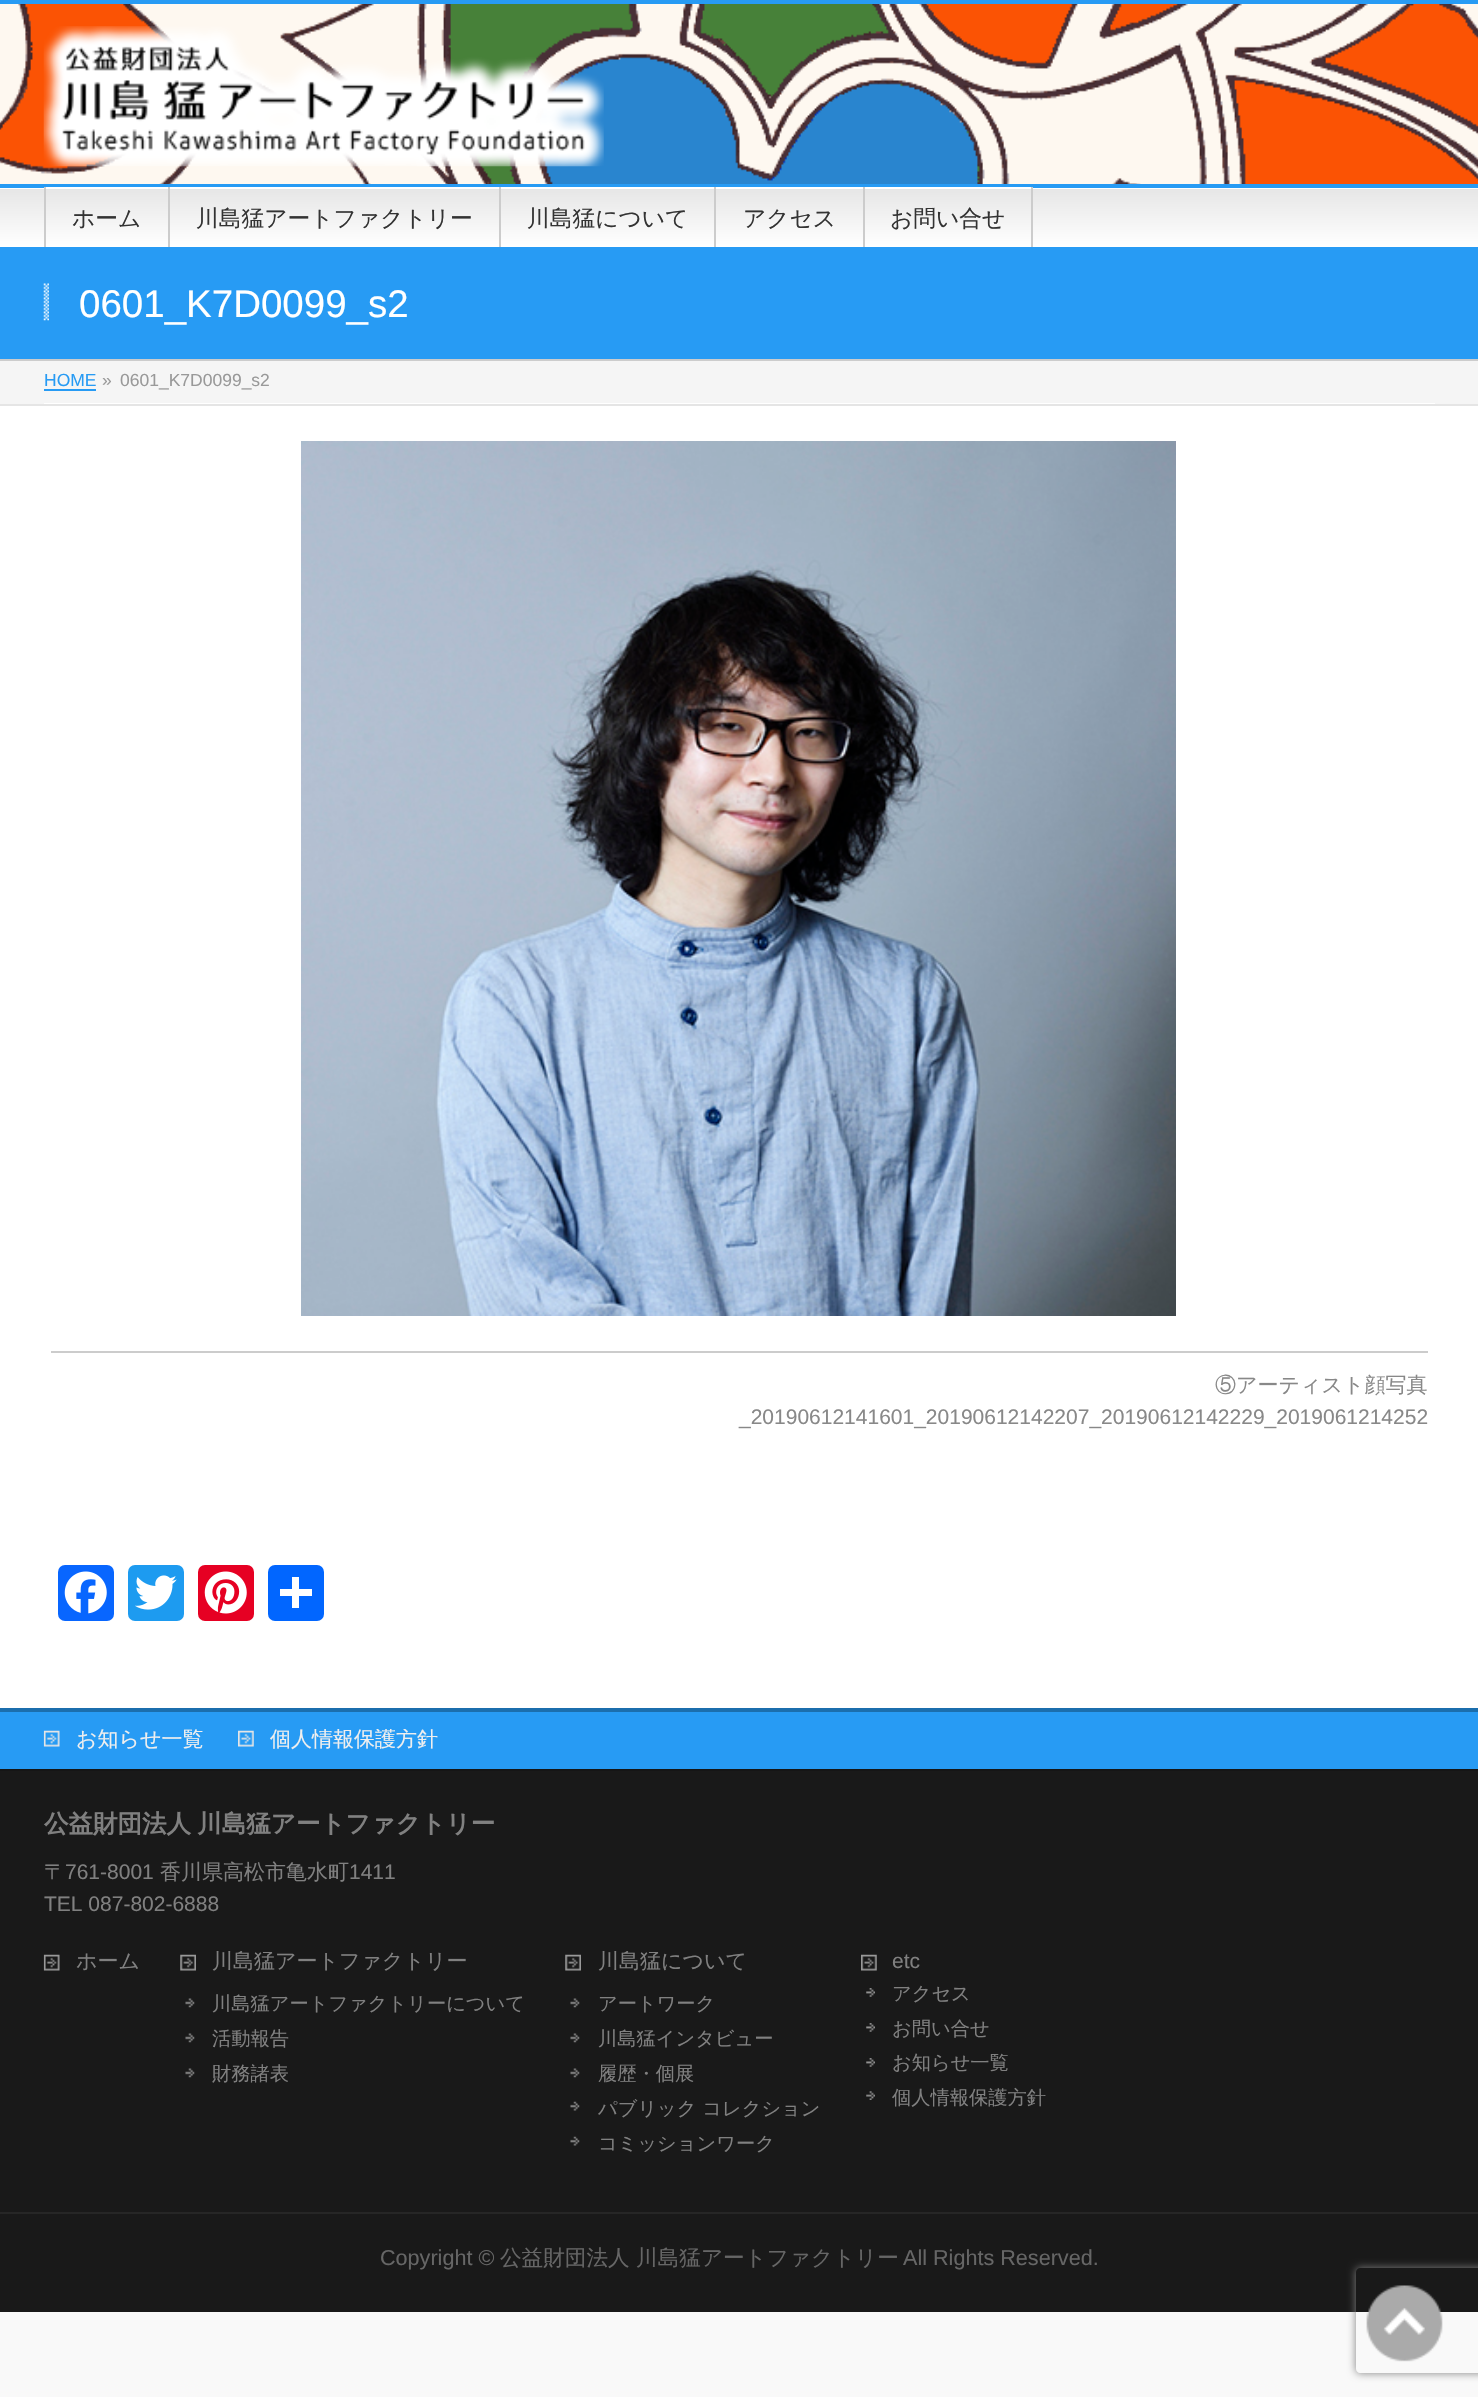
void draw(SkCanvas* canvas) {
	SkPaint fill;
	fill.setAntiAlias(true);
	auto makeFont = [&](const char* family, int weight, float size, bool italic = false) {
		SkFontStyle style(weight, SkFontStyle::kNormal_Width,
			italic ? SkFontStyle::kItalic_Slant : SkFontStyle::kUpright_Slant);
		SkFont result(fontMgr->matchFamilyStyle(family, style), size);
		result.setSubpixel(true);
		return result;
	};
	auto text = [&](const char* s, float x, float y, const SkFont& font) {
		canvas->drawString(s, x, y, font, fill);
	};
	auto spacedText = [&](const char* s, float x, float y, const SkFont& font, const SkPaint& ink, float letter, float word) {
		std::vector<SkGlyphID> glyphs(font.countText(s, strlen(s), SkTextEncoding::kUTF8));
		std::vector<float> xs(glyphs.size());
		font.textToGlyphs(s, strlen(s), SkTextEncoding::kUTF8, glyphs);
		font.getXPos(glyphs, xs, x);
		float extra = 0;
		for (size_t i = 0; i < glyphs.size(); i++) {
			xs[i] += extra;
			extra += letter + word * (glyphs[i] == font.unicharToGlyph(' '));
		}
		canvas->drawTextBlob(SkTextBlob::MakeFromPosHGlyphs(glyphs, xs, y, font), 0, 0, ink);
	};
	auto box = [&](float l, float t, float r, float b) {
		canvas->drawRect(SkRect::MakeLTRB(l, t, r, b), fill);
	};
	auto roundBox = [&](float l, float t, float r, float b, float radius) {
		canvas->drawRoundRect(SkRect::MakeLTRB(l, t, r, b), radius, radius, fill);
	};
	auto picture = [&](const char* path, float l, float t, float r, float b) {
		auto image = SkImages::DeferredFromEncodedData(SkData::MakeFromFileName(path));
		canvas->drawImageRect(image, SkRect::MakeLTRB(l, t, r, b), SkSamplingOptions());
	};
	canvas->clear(0xFFF9F9F9);
	picture("image0.png", 0, 4, 1478, 184);
	fill.setColor(0xFF279BF4);
	box(0, 0, 1478, 4);
	picture("image1.png", 43, 26, 604, 167);
	{
		const SkColor colors[] = {0xFFE5E5E5, 0xFFFFFFFF};
		const float stops[] = {0, 1};
		const SkPoint ends[] = {{739, 187}, {739, 247}};
		fill.setShader(SkGradientShader::MakeLinear(ends, colors, stops, 2, SkTileMode::kClamp));
		fill.setAlpha(255);
	}
	box(0, 189, 1478, 247);
	fill.setShader(nullptr);
	fill.setColor(0xFFFFFFFF);
	box(0, 188, 1478, 189);
	fill.setColor(0xFF279BF4);
	box(0, 184, 1478, 188);
	fill.setColor(0xFFCCCCCC);
	box(44, 187, 46, 247);
	fill.setColor(0xFFFFFFFF);
	box(46, 187, 168, 188);
	fill.setColor(0xFFCCCCCC);
	box(168, 187, 170, 247);
	fill.setColor(0xFFFFFFFF);
	box(170, 187, 499, 188);
	fill.setColor(0xFFCCCCCC);
	box(499, 187, 501, 247);
	fill.setColor(0xFFFFFFFF);
	box(501, 187, 714, 188);
	fill.setColor(0xFFCCCCCC);
	box(714, 187, 716, 247);
	fill.setColor(0xFFFFFFFF);
	box(716, 187, 863, 188);
	fill.setColor(0xFFCCCCCC);
	box(863, 187, 865, 247);
	fill.setColor(0xFFFFFFFF);
	box(865, 187, 1031, 188);
	fill.setColor(0xFFCCCCCC);
	box(1031, 187, 1033, 247);
	fill.setColor(0xFF279BF4);
	box(0, 247, 1478, 359);
	fill.setColor(0xFFCCCCCC);
	box(0, 359, 1478, 361);
	picture("image2.png", 43, 283, 49, 321);
	fill.setColor(0xFFF5F5F5);
	box(0, 361, 1478, 404);
	fill.setColor(0xFFE5E5E5);
	box(0, 404, 1478, 406);
	fill.setColor(0xFFFFFFFF);
	box(44, 403, 1435, 404);
	fill.setColor(0xFF279BF4);
	box(44, 389, 96, 391);
	fill.setColor(0xFFFFFFFF);
	box(0, 406, 1478, 1708);
	picture("image3.png", 301, 441, 1176, 1316);
	fill.setColor(0xFFCCCCCC);
	box(51, 1351, 1428, 1353);
	fill.setColor(0xFF0866FF);
	roundBox(58, 1565, 114, 1621, 7);
	picture("image4.png", 64, 1571, 107, 1614);
	fill.setColor(0xFF1D9BF0);
	roundBox(128, 1565, 184, 1621, 7);
	picture("image5.png", 135, 1575, 177, 1610);
	fill.setColor(0xFFE60023);
	roundBox(198, 1565, 254, 1621, 7);
	picture("image6.png", 204, 1571, 247, 1614);
	fill.setColor(0xFF0166FF);
	roundBox(268, 1565, 324, 1621, 7);
	fill.setColor(0xFFFFFFFF);
	box(292, 1577, 299, 1608);
	box(280, 1589, 312, 1596);
	fill.setColor(0xFF279BF4);
	box(0, 1712, 1478, 1769);
	fill.setColor(0xFF1B6EAD);
	box(0, 1708, 1478, 1712);
	picture("image7.png", 43, 1730, 60, 1747);
	picture("image8.png", 238, 1730, 254, 1747);
	fill.setColor(0xFF191919);
	box(0, 1771, 1478, 2212);
	fill.setColor(0xFF151515);
	box(0, 1769, 1478, 1771);
	picture("image9.png", 43, 1954, 60, 1971);
	picture("image10.png", 180, 1954, 196, 1971);
	picture("image11.png", 185, 1998, 195, 2008);
	picture("image12.png", 185, 2033, 195, 2043);
	picture("image12.png", 185, 2068, 195, 2078);
	picture("image13.png", 565, 1954, 581, 1971);
	picture("image14.png", 570, 1998, 580, 2008);
	picture("image15.png", 570, 2033, 580, 2043);
	picture("image15.png", 570, 2068, 580, 2078);
	picture("image16.png", 570, 2101, 580, 2111);
	picture("image16.png", 570, 2136, 580, 2146);
	picture("image17.png", 861, 1954, 877, 1971);
	picture("image18.png", 866, 1988, 875, 1997);
	picture("image18.png", 866, 2023, 875, 2032);
	picture("image18.png", 866, 2058, 875, 2067);
	picture("image19.png", 866, 2091, 875, 2100);
	fill.setColor(0xFF191919);
	box(0, 2214, 1478, 2312);
	fill.setColor(0xFF262626);
	box(0, 2212, 1478, 2214);
	canvas->save();
	canvas->clipPath(SkPathBuilder(SkPathFillType::kEvenOdd).moveTo(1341, 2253).lineTo(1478, 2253).lineTo(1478, 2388).lineTo(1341, 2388).close().moveTo(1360, 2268).lineTo(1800, 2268).cubicTo(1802, 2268, 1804, 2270, 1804, 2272).lineTo(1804, 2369).cubicTo(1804, 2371, 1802, 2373, 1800, 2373).lineTo(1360, 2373).cubicTo(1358, 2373, 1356, 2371, 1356, 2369).lineTo(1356, 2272).cubicTo(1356, 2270, 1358, 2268, 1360, 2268).close().detach(), true);
	fill.setColor(0xFF808080);
	fill.setMaskFilter(SkMaskFilter::MakeBlur(kNormal_SkBlurStyle, 4.5f));
	canvas->drawRoundRect(SkRect::MakeLTRB(1356, 2268, 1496, 2373), 4, 4, fill);
	fill.setMaskFilter(nullptr);
	canvas->restore();
	picture("image20.png", 1366, 2285, 1443, 2362);
	auto font1 = makeFont("WenQuanYi Zen Hei", 500, 22.75f);
	fill.setColor(0xFF333333);
	text("ホーム", 72, 226, font1);
	text("川島猛アートファクトリー", 196, 226, font1);
	text("川島猛について", 527, 226, font1);
	text("アクセス", 743, 226, font1);
	text("お問い合せ", 890, 226, font1);
	auto font2 = makeFont("Liberation Sans", 400, 38.5f);
	fill.setColor(0xFFFFFFFF);
	text("0601_K7D0099_s2", 79, 317, font2);
	auto font3 = makeFont("Liberation Sans", 400, 17.5f);
	fill.setColor(0xFF279BF4);
	text("HOME", 44, 386, font3);
	fill.setColor(0xFF999999);
	text("»", 102, 386, font3);
	text("0601_K7D0099_s2", 120, 386, font3);
	auto font4 = makeFont("WenQuanYi Zen Hei", 500, 21);
	fill.setColor(0xFF888888);
	text("⑤アーティスト顔写真", 1215, 1392, font4);
	auto font5 = makeFont("Liberation Sans", 400, 21);
	text("_20190612141601_20190612142207_20190612142229_2019061214252", 739, 1424, font5);
	fill.setColor(0xFFEFEFEF);
	text("お知らせ一覧", 76, 1746, font4);
	canvas->save();
	canvas->clipRect(SkRect::MakeLTRB(44, 1729, 1435, 1752));
	text("個人情報保護方針", 270, 1746, font4);
	canvas->restore();
	auto font6 = makeFont("WenQuanYi Zen Hei", 700, 24.5f);
	fill.setColor(0xFF808080);
	spacedText("公益財団法人 川島猛アートファクトリー", 44, 1832, font6, fill, 0, -1);
	text("〒", 44, 1879, font4);
	text("761-8001", 65, 1879, font5);
	text("香川県高松市亀水町", 160, 1879, font4);
	text("1411", 349, 1879, font5);
	text("TEL 087-802-6888", 44, 1911, font5);
	text("ホーム", 76, 1968, font4);
	canvas->save();
	canvas->clipRect(SkRect::MakeLTRB(180, 1951, 560, 1983));
	text("川島猛アートファクトリー", 212, 1968, font4);
	canvas->restore();
	auto font7 = makeFont("WenQuanYi Zen Hei", 500, 19.25f);
	text("川島猛アートファクトリーについて", 212, 2010, font7);
	text("活動報告", 212, 2045, font7);
	text("財務諸表", 212, 2080, font7);
	canvas->save();
	canvas->clipRect(SkRect::MakeLTRB(565, 1951, 854, 1983));
	text("川島猛について", 598, 1968, font4);
	canvas->restore();
	text("アートワーク", 598, 2010, font7);
	text("川島猛インタビュー", 598, 2045, font7);
	text("履歴・個展", 598, 2080, font7);
	text("パブリック コレクション", 598, 2115, font7);
	text("コミッションワーク", 598, 2150, font7);
	text("etc", 892, 1968, font5);
	text("アクセス", 892, 2000, font7);
	text("お問い合せ", 892, 2035, font7);
	text("お知らせ一覧", 892, 2069, font7);
	text("個人情報保護方針", 892, 2104, font7);
	auto font8 = makeFont("Liberation Sans", 400, 21.6f);
	fill.setColor(0xFF666666);
	text("Copyright ©", 380, 2265, font8);
	auto font9 = makeFont("WenQuanYi Zen Hei", 500, 21.6f);
	text("公益財団法人 川島猛アートファクトリー", 500, 2265, font9);
	text("All Rights Reserved.", 903, 2265, font8);
}
